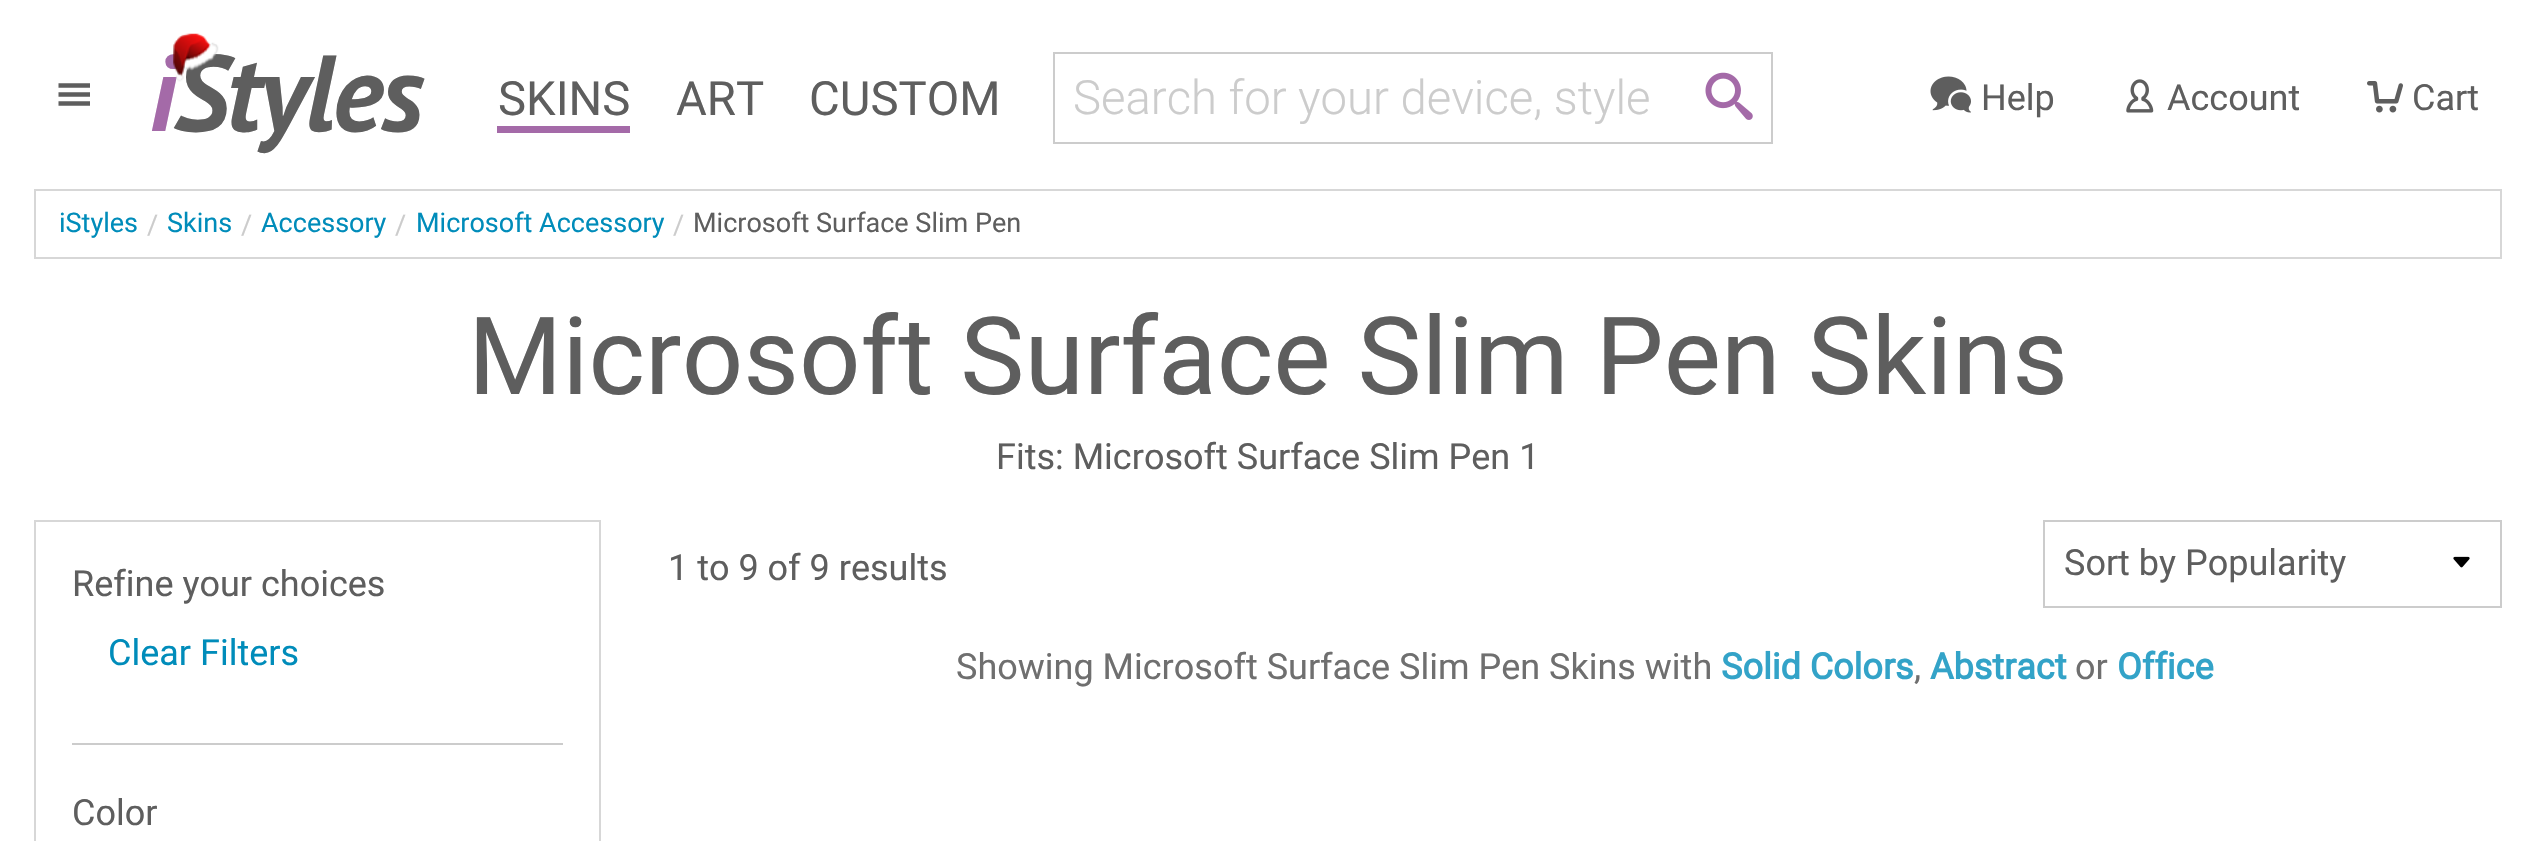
void draw(SkCanvas* canvas) {
	SkPaint fill;
	fill.setAntiAlias(true);
	auto makeFont = [&](const char* family, int weight, float size, bool italic = false) {
		SkFontStyle style(weight, SkFontStyle::kNormal_Width,
			italic ? SkFontStyle::kItalic_Slant : SkFontStyle::kUpright_Slant);
		SkFont result(fontMgr->matchFamilyStyle(family, style), size);
		result.setSubpixel(true);
		return result;
	};
	auto text = [&](const char* s, float x, float y, const SkFont& font) {
		canvas->drawString(s, x, y, font, fill);
	};
	auto spacedText = [&](const char* s, float x, float y, const SkFont& font, const SkPaint& ink, float letter, float word) {
		std::vector<SkGlyphID> glyphs(font.countText(s, strlen(s), SkTextEncoding::kUTF8));
		std::vector<float> xs(glyphs.size());
		font.textToGlyphs(s, strlen(s), SkTextEncoding::kUTF8, glyphs);
		font.getXPos(glyphs, xs, x);
		float extra = 0;
		for (size_t i = 0; i < glyphs.size(); i++) {
			xs[i] += extra;
			extra += letter + word * (glyphs[i] == font.unicharToGlyph(' '));
		}
		canvas->drawTextBlob(SkTextBlob::MakeFromPosHGlyphs(glyphs, xs, y, font), 0, 0, ink);
	};
	auto box = [&](float l, float t, float r, float b) {
		canvas->drawRect(SkRect::MakeLTRB(l, t, r, b), fill);
	};
	auto picture = [&](const char* path, float l, float t, float r, float b) {
		auto image = SkImages::DeferredFromEncodedData(SkData::MakeFromFileName(path));
		canvas->drawImageRect(image, SkRect::MakeLTRB(l, t, r, b), SkSamplingOptions());
	};
	canvas->clear(0xFFFFFFFF);
	picture("image1.png", 58, 83, 90, 106);
	fill.setColor(0xFFA46AA8);
	box(497, 126, 630, 133);
	fill.setStyle(SkPaint::kStroke_Style);
	fill.setStrokeWidth(2);
	fill.setColor(0xFFCCCCCC);
	canvas->drawRect(SkRect::MakeLTRB(1054, 53, 1772, 143), fill);
	picture("image2.png", 1705, 72, 1753, 120);
	picture("image3.png", 1930, 76, 1971, 113);
	picture("image4.png", 2126, 79, 2154, 113);
	picture("image5.png", 2367, 81, 2403, 113);
	fill.setColor(0xFFD7D7D7);
	canvas->drawRect(SkRect::MakeLTRB(35, 190, 2501, 258), fill);
	canvas->drawRect(SkRect::MakeLTRB(35, 521, 600, 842), fill);
	fill.setStyle(SkPaint::kFill_Style);
	fill.setColor(0xFFCCCCCC);
	box(72, 743, 563, 745);
	picture("image6.png", 2453, 556, 2470, 568);
	fill.setStyle(SkPaint::kStroke_Style);
	canvas->drawRect(SkRect::MakeLTRB(2044, 521, 2501, 607), fill);
	auto font1 = makeFont("PT Sans", 700, 108, true);
	fill.setStyle(SkPaint::kFill_Style);
	fill.setColor(0xFFA46AA8);
	spacedText("i", 149, 131, font1, fill, -2.25f, 0);
	fill.setColor(0xFF5E5E5E);
	spacedText("Styles", 174, 131, font1, fill, -2.25f, 0);
	picture("image0.png", 173, 33, 219, 82);
	auto font2 = makeFont("Roboto", 400, 47.25f);
	text("SKINS", 498, 115, font2);
	text("ART", 676, 115, font2);
	text("CUSTOM", 809, 115, font2);
	auto font3 = makeFont("Roboto", 300, 47.25f);
	fill.setColor(0xFFCCCCCC);
	text("Search for your device, style", 1073, 114, font3);
	auto font4 = makeFont("Roboto", 400, 36);
	fill.setColor(0xFF5E5E5E);
	text("Help", 1981, 110, font4);
	text("Account", 2167, 110, font4);
	text("Cart", 2412, 110, font4);
	auto font5 = makeFont("Roboto", 400, 27);
	fill.setColor(0xFF008CBA);
	text("iStyles", 59, 232, font5);
	fill.setColor(0xFFCCCCCC);
	text("/", 147, 234, font5);
	fill.setColor(0xFF008CBA);
	text("Skins", 167, 232, font5);
	fill.setColor(0xFFCCCCCC);
	text("/", 241, 234, font5);
	fill.setColor(0xFF008CBA);
	text("Accessory", 261, 232, font5);
	fill.setColor(0xFFCCCCCC);
	text("/", 395, 234, font5);
	fill.setColor(0xFF008CBA);
	text("Microsoft Accessory", 416, 232, font5);
	fill.setColor(0xFFCCCCCC);
	text("/", 673, 234, font5);
	fill.setColor(0xFF5E5E5E);
	text("Microsoft Surface Slim Pen", 693, 232, font5);
	auto font6 = makeFont("Roboto", 400, 108);
	text("Microsoft Surface Slim Pen Skins", 468, 394, font6);
	text("Fits: Microsoft Surface Slim Pen 1", 996, 469, font4);
	text("Refine your choices", 72, 596, font4);
	fill.setColor(0xFF008CBA);
	text("Clear Filters", 108, 665, font4);
	fill.setColor(0xFF5E5E5E);
	text("Color", 72, 825, font4);
	text("1 to 9 of 9 results", 668, 580, font4);
	text("Sort by Popularity", 2064, 575, font4);
	fill.setColor(0xFF6F6F6F);
	text("Showing Microsoft Surface Slim Pen Skins with", 956, 679, font4);
	auto font7 = makeFont("Roboto", 700, 36);
	fill.setColor(0xFF33A3C8);
	text("Solid Colors", 1721, 679, font7);
	fill.setColor(0xFF6F6F6F);
	text(",", 1914, 679, font4);
	fill.setColor(0xFF33A3C8);
	text("Abstract", 1930, 679, font7);
	fill.setColor(0xFF6F6F6F);
	text("or", 2075, 679, font4);
	fill.setColor(0xFF33A3C8);
	text("Office", 2117, 679, font7);
}
